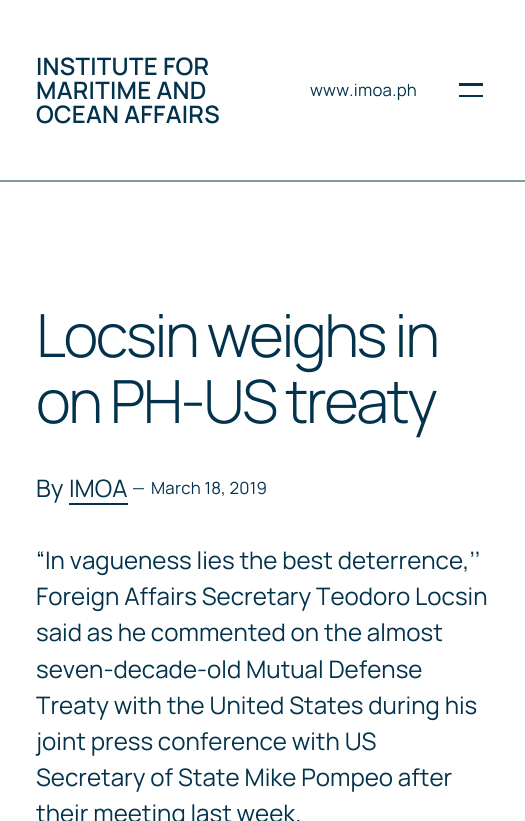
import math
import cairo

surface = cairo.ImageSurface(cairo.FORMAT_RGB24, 525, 821)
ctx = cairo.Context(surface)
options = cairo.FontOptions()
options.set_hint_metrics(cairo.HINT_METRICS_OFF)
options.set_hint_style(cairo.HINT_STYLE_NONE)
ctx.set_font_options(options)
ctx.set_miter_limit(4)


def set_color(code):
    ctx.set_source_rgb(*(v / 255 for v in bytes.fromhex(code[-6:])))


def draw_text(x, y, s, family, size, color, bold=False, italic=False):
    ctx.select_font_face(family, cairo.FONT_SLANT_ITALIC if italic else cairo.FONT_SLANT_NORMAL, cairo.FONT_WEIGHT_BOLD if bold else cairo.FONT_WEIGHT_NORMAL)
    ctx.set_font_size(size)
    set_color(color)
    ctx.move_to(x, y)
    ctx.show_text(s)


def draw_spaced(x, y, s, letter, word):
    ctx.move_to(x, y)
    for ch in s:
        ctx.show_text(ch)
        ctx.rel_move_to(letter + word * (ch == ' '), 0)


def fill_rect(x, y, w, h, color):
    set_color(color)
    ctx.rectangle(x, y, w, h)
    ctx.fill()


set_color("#ffffff")
ctx.paint()
fill_rect(0, 180, 525, 2, "#8299a4")
ctx.select_font_face("Manrope SemiBold")
ctx.set_font_size(24)
set_color("#03334c")
draw_spaced(36, 75, "INSTITUTE FOR", 0.25, 0)
draw_spaced(36, 99, "MARITIME AND", 0.25, 0)
draw_spaced(36, 123, "OCEAN AFFAIRS", 0.25, 0)
ctx.select_font_face("Manrope")
ctx.set_font_size(16.75)
draw_spaced(310, 96, "www.imoa.ph", 0.25, 0)
fill_rect(459, 83, 24, 3, "#03334c")
fill_rect(459, 95, 24, 2, "#03334c")
ctx.select_font_face("Manrope Light")
ctx.set_font_size(59.5)
draw_spaced(36, 357, "Locsin weighs in", -2.4, 0)
draw_spaced(36, 423, "on PH-US treaty", -2.4, 0)
draw_text(36, 497, "By", "Manrope", 24, "#03334c")
draw_text(69, 497, "IMOA", "Manrope", 24, "#03334c")
fill_rect(69, 503, 59, 2, "#03334c")
draw_text(132, 494, "—", "Manrope", 16.75, "#03334c")
draw_spaced(151, 494, "March 18, 2019", 0.25, 0)
draw_text(36, 569, "“In vagueness lies the best deterrence,’’", "Manrope", 24.1, "#03334c")
draw_text(36, 605, "Foreign Affairs Secretary Teodoro Locsin", "Manrope", 24.1, "#03334c")
draw_text(36, 641, "said as he commented on the almost", "Manrope", 24.1, "#03334c")
draw_text(36, 678, "seven-decade-old Mutual Defense", "Manrope", 24.1, "#03334c")
draw_text(36, 714, "Treaty with the United States during his", "Manrope", 24.1, "#03334c")
draw_text(36, 750, "joint press conference with US", "Manrope", 24.1, "#03334c")
draw_text(36, 786, "Secretary of State Mike Pompeo after", "Manrope", 24.1, "#03334c")
draw_text(36, 822, "their meeting last week.", "Manrope", 24.1, "#03334c")
surface.write_to_png("output.png")
